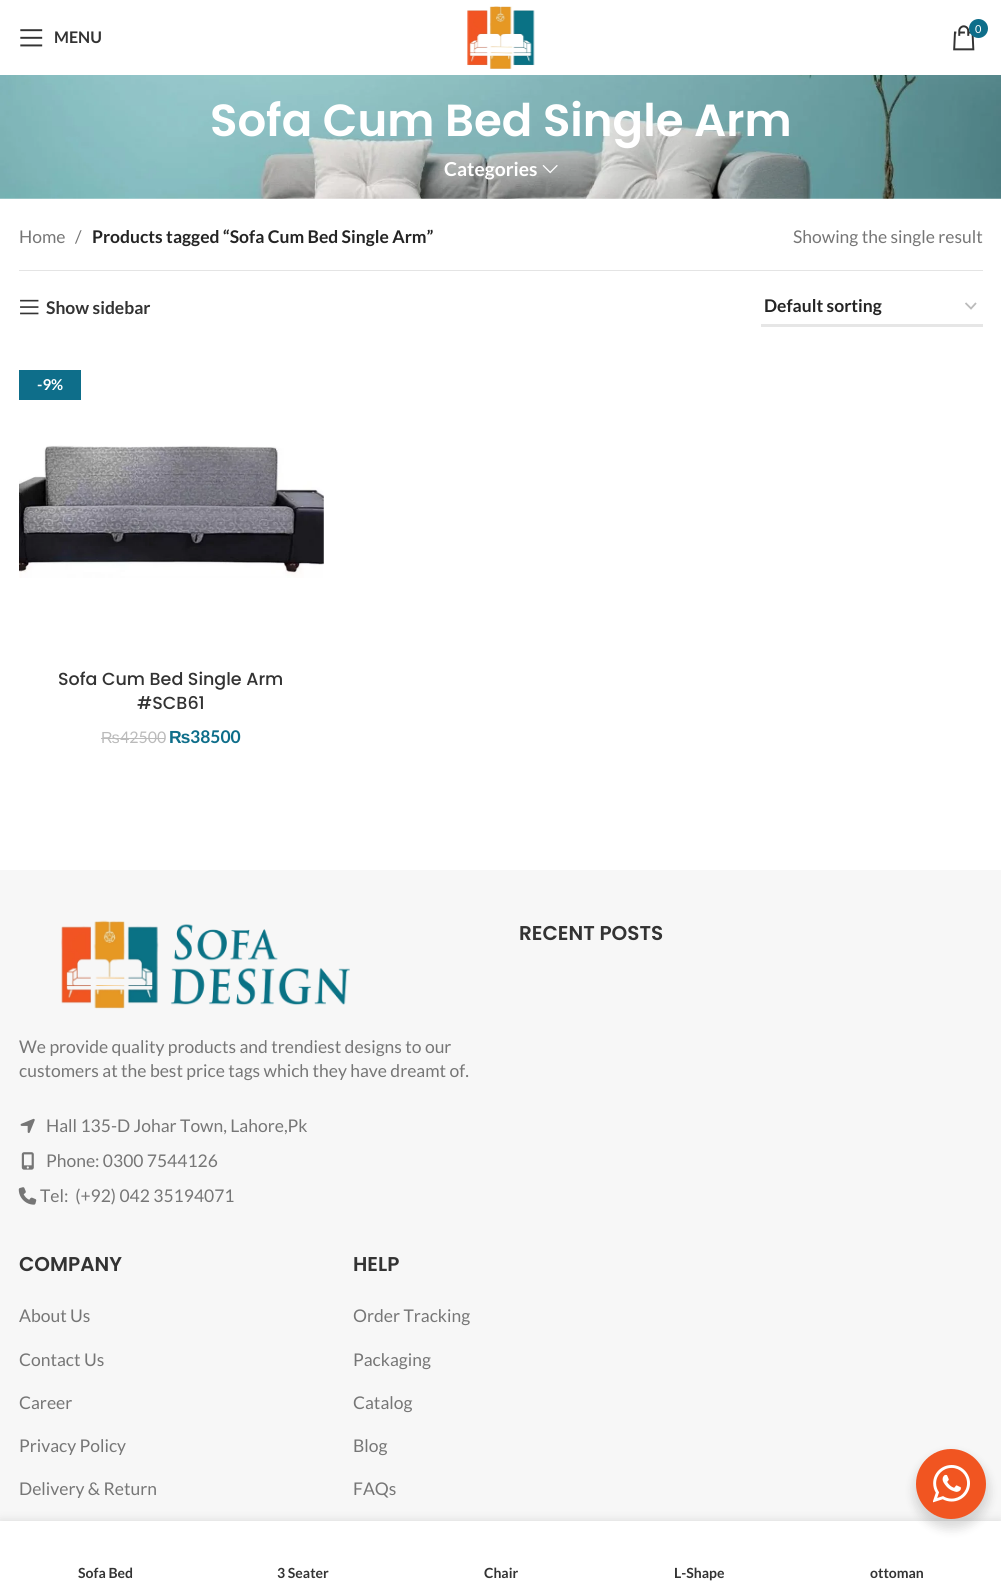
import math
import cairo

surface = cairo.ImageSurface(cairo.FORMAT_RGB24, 1001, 1589)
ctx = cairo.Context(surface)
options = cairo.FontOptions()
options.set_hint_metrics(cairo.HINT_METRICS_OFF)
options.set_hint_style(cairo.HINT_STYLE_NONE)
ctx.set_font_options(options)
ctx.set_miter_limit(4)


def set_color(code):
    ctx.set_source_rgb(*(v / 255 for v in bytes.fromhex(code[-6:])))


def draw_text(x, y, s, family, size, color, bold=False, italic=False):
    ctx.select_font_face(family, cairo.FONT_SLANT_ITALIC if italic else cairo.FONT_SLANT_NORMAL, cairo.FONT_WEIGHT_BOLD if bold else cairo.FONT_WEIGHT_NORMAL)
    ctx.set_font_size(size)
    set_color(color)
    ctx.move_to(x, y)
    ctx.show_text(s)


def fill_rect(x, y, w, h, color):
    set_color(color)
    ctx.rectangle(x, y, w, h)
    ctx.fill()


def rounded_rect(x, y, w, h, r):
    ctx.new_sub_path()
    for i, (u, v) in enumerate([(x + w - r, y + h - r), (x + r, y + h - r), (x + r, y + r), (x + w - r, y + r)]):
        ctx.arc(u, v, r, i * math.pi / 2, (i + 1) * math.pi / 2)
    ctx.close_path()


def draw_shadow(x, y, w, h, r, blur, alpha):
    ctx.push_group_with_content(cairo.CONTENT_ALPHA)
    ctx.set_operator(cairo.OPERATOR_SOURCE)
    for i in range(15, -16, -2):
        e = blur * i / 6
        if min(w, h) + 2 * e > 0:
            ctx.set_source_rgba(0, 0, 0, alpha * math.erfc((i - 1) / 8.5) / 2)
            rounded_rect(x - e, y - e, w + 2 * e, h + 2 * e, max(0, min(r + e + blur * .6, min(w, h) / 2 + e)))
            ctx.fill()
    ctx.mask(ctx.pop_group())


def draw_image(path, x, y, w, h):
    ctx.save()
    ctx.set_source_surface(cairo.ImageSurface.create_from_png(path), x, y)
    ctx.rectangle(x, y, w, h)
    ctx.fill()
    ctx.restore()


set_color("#ffffff")
ctx.paint()
draw_image("assets/img1.png", 467, 6, 68, 63)
draw_image("assets/img2.png", 953, 25, 22, 26)
set_color("#0e6e8a")
ctx.arc(978.5, 28.5, 9.5, 0, 2 * math.pi)
ctx.fill()
draw_text(975, 33, "0", "Lato", 11, "#ffffff")
draw_image("assets/img3.png", 20, 29, 23, 18)
draw_text(54, 43, "MENU", "Lato", 16, "#333333", bold=True)
draw_image("assets/img4.png", 0, 75, 1001, 124)
draw_text(210, 136, "Sofa Cum Bed Single Arm", "Poppins SemiBold", 45, "#ffffff")
draw_text(444, 176, "Categories", "Lato", 19.25, "#ffffff", bold=True)
draw_image("assets/img5.png", 542, 165, 16, 9)
fill_rect(19, 270, 964, 1, "#e4e4e4")
draw_text(19, 243, "Home", "Lato", 17.5, "#767676")
draw_text(75, 243, "/", "Lato", 17.5, "#767676")
draw_text(92, 243, "Products tagged “Sofa Cum Bed Single Arm”", "Lato", 17.5, "#242424", bold=True)
draw_text(793, 243, "Showing the single result", "Lato", 17.5, "#767676")
draw_image("assets/img6.png", 20, 299, 19, 16)
draw_text(46, 314, "Show sidebar", "Lato", 17.5, "#333333", bold=True)
ctx.new_path()
ctx.move_to(965.5, 303)
ctx.line_to(971, 308.5)
ctx.line_to(976, 303)
set_color("#bbbbbb")
ctx.set_line_width(1.8)
ctx.stroke()
fill_rect(761, 324, 222, 3, "#e6e6e6")
draw_text(764, 312, "Default sorting", "Lato", 17.5, "#242424", bold=True)
fill_rect(19, 370, 62, 30, "#0e6e8a")
draw_text(37, 390, "-9%", "Lato", 15, "#ffffff", bold=True)
draw_image("assets/img7.png", 19, 445, 305, 133)
draw_text(58, 685, "Sofa Cum Bed Single Arm", "Poppins Medium", 17.5, "#333333")
draw_text(137, 709, "#SCB61", "Poppins Medium", 17.5, "#333333")
draw_text(101, 743, "₨", "Liberation Sans", 16, "#bbbbbb")
fill_rect(101, 738, 19, 1, "#bbbbbb")
fill_rect(120, 738, 45, 1, "#bbbbbb")
draw_text(120, 743, "42500", "Lato", 16, "#bbbbbb")
draw_text(169, 743, "₨", "Liberation Sans", 17.5, "#0e6e8a", bold=True)
draw_text(190, 743, "38500", "Lato", 17.5, "#0e6e8a", bold=True)
fill_rect(0, 870, 1001, 651, "#f7f7f7")
draw_text(519, 940, "RECENT POSTS", "Poppins SemiBold", 20, "#333333")
draw_image("assets/img8.png", 61, 920, 289, 89)
draw_text(19, 1053, "We provide quality products and trendiest designs to our", "Lato", 17.5, "#767676")
draw_text(19, 1077, "customers at the best price tags which they have dreamt of.", "Lato", 17.5, "#767676")
draw_image("assets/img9.png", 20, 1118, 15, 15)
draw_text(46, 1132, "Hall 135-D Johar Town, Lahore,Pk", "Lato", 17.5, "#767676")
draw_image("assets/img10.png", 21, 1152, 13, 18)
draw_text(46, 1167, "Phone: 0300 7544126", "Lato", 17.5, "#767676")
draw_image("assets/img11.png", 18, 1187, 19, 18)
draw_text(40, 1202, "Tel:  (+92) 042 35194071", "Lato", 17.5, "#767676")
draw_text(19, 1271, "COMPANY", "Poppins SemiBold", 20, "#333333")
draw_text(19, 1322, "About Us", "Lato", 17.5, "#767676")
draw_text(19, 1366, "Contact Us", "Lato", 17.5, "#767676")
draw_text(19, 1409, "Career", "Lato", 17.5, "#767676")
draw_text(19, 1452, "Privacy Policy", "Lato", 17.5, "#767676")
draw_text(19, 1495, "Delivery & Return", "Lato", 17.5, "#767676")
draw_text(353, 1271, "HELP", "Poppins SemiBold", 20, "#333333")
draw_text(353, 1322, "Order Tracking", "Lato", 17.5, "#767676")
draw_text(353, 1366, "Packaging", "Lato", 17.5, "#767676")
draw_text(353, 1409, "Catalog", "Lato", 17.5, "#767676")
draw_text(353, 1452, "Blog", "Lato", 17.5, "#767676")
draw_text(353, 1495, "FAQs", "Lato", 17.5, "#767676")
set_color("#000000")
draw_shadow(0, 1521, 1001, 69, 0, 5.5, 0.12)
fill_rect(0, 1521, 1001, 68, "#ffffff")
set_color("#000000")
draw_shadow(914, 1454, 75, 75, 37.5, 5, 0.14)
set_color("#f15521")
ctx.arc(951, 1484, 35, 0, 2 * math.pi)
ctx.fill()
draw_image("assets/img12.png", 933, 1465, 37, 38)
draw_text(78, 1578, "Sofa Bed", "Lato", 14, "#333333", bold=True)
draw_text(277, 1578, "3 Seater", "Lato", 14, "#333333", bold=True)
draw_text(484, 1578, "Chair", "Lato", 14, "#333333", bold=True)
draw_text(674, 1578, "L-Shape", "Lato", 14, "#333333", bold=True)
draw_text(870, 1578, "ottoman", "Lato", 14, "#333333", bold=True)
surface.write_to_png("output.png")
